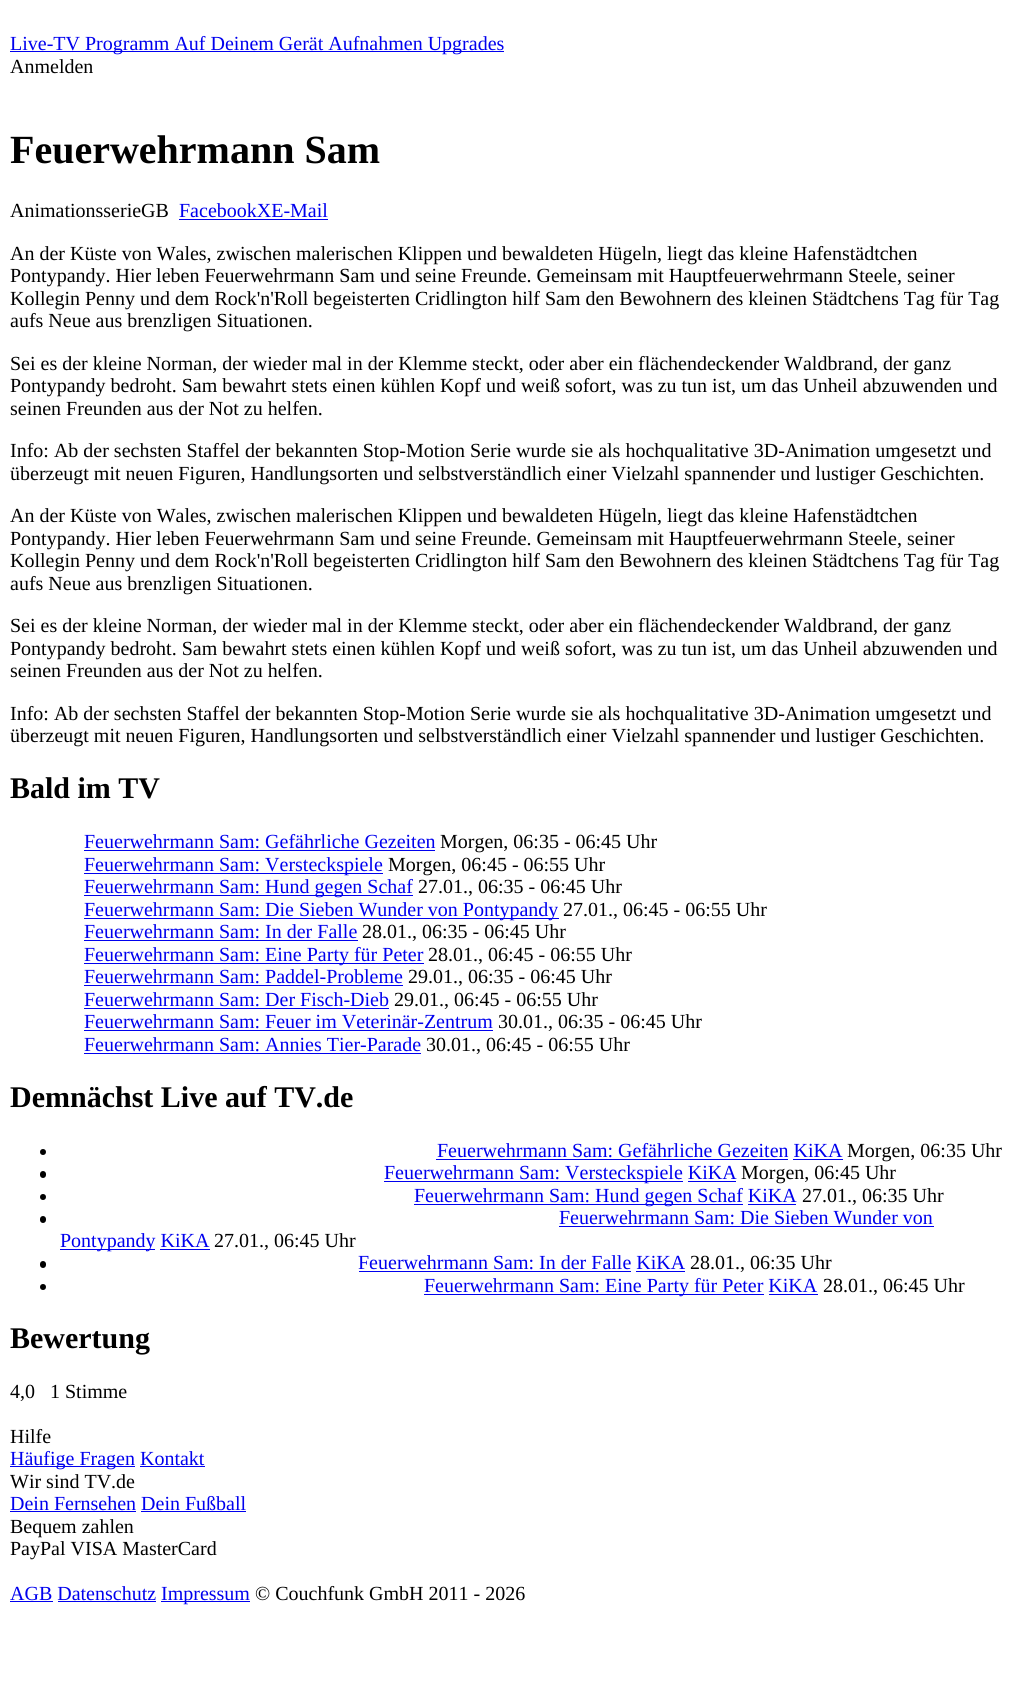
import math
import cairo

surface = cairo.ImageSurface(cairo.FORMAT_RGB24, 1025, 1686)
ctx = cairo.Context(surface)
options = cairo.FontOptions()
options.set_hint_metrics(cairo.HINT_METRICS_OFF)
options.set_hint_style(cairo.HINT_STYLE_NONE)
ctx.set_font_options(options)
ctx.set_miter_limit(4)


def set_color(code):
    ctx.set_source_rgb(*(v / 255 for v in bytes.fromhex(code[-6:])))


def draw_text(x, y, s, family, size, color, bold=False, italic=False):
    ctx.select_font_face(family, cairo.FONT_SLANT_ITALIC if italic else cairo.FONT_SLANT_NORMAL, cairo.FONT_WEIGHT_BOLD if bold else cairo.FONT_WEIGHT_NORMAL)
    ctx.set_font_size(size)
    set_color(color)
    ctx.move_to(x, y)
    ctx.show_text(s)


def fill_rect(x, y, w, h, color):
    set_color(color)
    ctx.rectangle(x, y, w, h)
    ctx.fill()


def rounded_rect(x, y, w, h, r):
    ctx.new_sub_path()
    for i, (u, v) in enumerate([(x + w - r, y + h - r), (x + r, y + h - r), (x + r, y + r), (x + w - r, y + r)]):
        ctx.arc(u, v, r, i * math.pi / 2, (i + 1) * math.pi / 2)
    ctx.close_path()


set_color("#ffffff")
ctx.paint()
fill_rect(10, 51, 494, 1, "#0000ee")
draw_text(10, 50, "Live-TV Programm Auf Deinem Gerät Aufnahmen Upgrades", "Liberation Serif", 20, "#0000ee")
draw_text(10, 73, "Anmelden", "Liberation Serif", 20, "#000000")
draw_text(10, 163, "Feuerwehrmann Sam", "Liberation Serif", 40, "#000000", bold=True)
draw_text(10, 217, "AnimationsserieGB", "Liberation Serif", 20, "#000000")
draw_text(179, 217, "FacebookXE-Mail", "Liberation Serif", 20, "#0000ee")
fill_rect(179, 219, 149, 1, "#0000ee")
draw_text(10, 260, "An der Küste von Wales, zwischen malerischen Klippen und bewaldeten Hügeln, liegt das kleine Hafenstädtchen", "Liberation Serif", 20, "#000000")
draw_text(10, 282, "Pontypandy. Hier leben Feuerwehrmann Sam und seine Freunde. Gemeinsam mit Hauptfeuerwehrmann Steele, seiner", "Liberation Serif", 20, "#000000")
draw_text(10, 305, "Kollegin Penny und dem Rock'n'Roll begeisterten Cridlington hilf Sam den Bewohnern des kleinen Städtchens Tag für Tag", "Liberation Serif", 20, "#000000")
draw_text(10, 327, "aufs Neue aus brenzligen Situationen.", "Liberation Serif", 20, "#000000")
draw_text(10, 370, "Sei es der kleine Norman, der wieder mal in der Klemme steckt, oder aber ein flächendeckender Waldbrand, der ganz", "Liberation Serif", 20, "#000000")
draw_text(10, 392, "Pontypandy bedroht. Sam bewahrt stets einen kühlen Kopf und weiß sofort, was zu tun ist, um das Unheil abzuwenden und", "Liberation Serif", 20, "#000000")
draw_text(10, 415, "seinen Freunden aus der Not zu helfen.", "Liberation Serif", 20, "#000000")
draw_text(10, 457, "Info: Ab der sechsten Staffel der bekannten Stop-Motion Serie wurde sie als hochqualitative 3D-Animation umgesetzt und", "Liberation Serif", 20, "#000000")
draw_text(10, 480, "überzeugt mit neuen Figuren, Handlungsorten und selbstverständlich einer Vielzahl spannender und lustiger Geschichten.", "Liberation Serif", 20, "#000000")
draw_text(10, 522, "An der Küste von Wales, zwischen malerischen Klippen und bewaldeten Hügeln, liegt das kleine Hafenstädtchen", "Liberation Serif", 20, "#000000")
draw_text(10, 545, "Pontypandy. Hier leben Feuerwehrmann Sam und seine Freunde. Gemeinsam mit Hauptfeuerwehrmann Steele, seiner", "Liberation Serif", 20, "#000000")
draw_text(10, 567, "Kollegin Penny und dem Rock'n'Roll begeisterten Cridlington hilf Sam den Bewohnern des kleinen Städtchens Tag für Tag", "Liberation Serif", 20, "#000000")
draw_text(10, 590, "aufs Neue aus brenzligen Situationen.", "Liberation Serif", 20, "#000000")
draw_text(10, 632, "Sei es der kleine Norman, der wieder mal in der Klemme steckt, oder aber ein flächendeckender Waldbrand, der ganz", "Liberation Serif", 20, "#000000")
draw_text(10, 655, "Pontypandy bedroht. Sam bewahrt stets einen kühlen Kopf und weiß sofort, was zu tun ist, um das Unheil abzuwenden und", "Liberation Serif", 20, "#000000")
draw_text(10, 677, "seinen Freunden aus der Not zu helfen.", "Liberation Serif", 20, "#000000")
draw_text(10, 720, "Info: Ab der sechsten Staffel der bekannten Stop-Motion Serie wurde sie als hochqualitative 3D-Animation umgesetzt und", "Liberation Serif", 20, "#000000")
draw_text(10, 742, "überzeugt mit neuen Figuren, Handlungsorten und selbstverständlich einer Vielzahl spannender und lustiger Geschichten.", "Liberation Serif", 20, "#000000")
draw_text(10, 798, "Bald im TV", "Liberation Serif", 30, "#000000", bold=True)
draw_text(84, 848, "Feuerwehrmann Sam: Gefährliche Gezeiten", "Liberation Serif", 20, "#0000ee")
fill_rect(84, 850, 351, 1, "#0000ee")
draw_text(440, 848, "Morgen, 06:35 - 06:45 Uhr", "Liberation Serif", 20, "#000000")
fill_rect(84, 873, 299, 1, "#0000ee")
draw_text(84, 871, "Feuerwehrmann Sam: Versteckspiele", "Liberation Serif", 20, "#0000ee")
draw_text(388, 871, "Morgen, 06:45 - 06:55 Uhr", "Liberation Serif", 20, "#000000")
fill_rect(84, 895, 329, 1, "#0000ee")
draw_text(84, 893, "Feuerwehrmann Sam: Hund gegen Schaf", "Liberation Serif", 20, "#0000ee")
draw_text(418, 893, "27.01., 06:35 - 06:45 Uhr", "Liberation Serif", 20, "#000000")
fill_rect(84, 918, 475, 1, "#0000ee")
draw_text(84, 916, "Feuerwehrmann Sam: Die Sieben Wunder von Pontypandy", "Liberation Serif", 20, "#0000ee")
draw_text(563, 916, "27.01., 06:45 - 06:55 Uhr", "Liberation Serif", 20, "#000000")
draw_text(84, 938, "Feuerwehrmann Sam: In der Falle", "Liberation Serif", 20, "#0000ee")
fill_rect(84, 940, 274, 1, "#0000ee")
draw_text(362, 938, "28.01., 06:35 - 06:45 Uhr", "Liberation Serif", 20, "#000000")
fill_rect(84, 963, 340, 1, "#0000ee")
draw_text(84, 961, "Feuerwehrmann Sam: Eine Party für Peter", "Liberation Serif", 20, "#0000ee")
draw_text(428, 961, "28.01., 06:45 - 06:55 Uhr", "Liberation Serif", 20, "#000000")
draw_text(84, 983, "Feuerwehrmann Sam: Paddel-Probleme", "Liberation Serif", 20, "#0000ee")
fill_rect(84, 985, 319, 1, "#0000ee")
draw_text(408, 983, "29.01., 06:35 - 06:45 Uhr", "Liberation Serif", 20, "#000000")
draw_text(84, 1006, "Feuerwehrmann Sam: Der Fisch-Dieb", "Liberation Serif", 20, "#0000ee")
fill_rect(84, 1008, 305, 1, "#0000ee")
draw_text(394, 1006, "29.01., 06:45 - 06:55 Uhr", "Liberation Serif", 20, "#000000")
draw_text(84, 1028, "Feuerwehrmann Sam: Feuer im Veterinär-Zentrum", "Liberation Serif", 20, "#0000ee")
fill_rect(84, 1030, 409, 1, "#0000ee")
draw_text(498, 1028, "30.01., 06:35 - 06:45 Uhr", "Liberation Serif", 20, "#000000")
draw_text(84, 1051, "Feuerwehrmann Sam: Annies Tier-Parade", "Liberation Serif", 20, "#0000ee")
fill_rect(84, 1053, 337, 1, "#0000ee")
draw_text(426, 1051, "30.01., 06:45 - 06:55 Uhr", "Liberation Serif", 20, "#000000")
draw_text(10, 1107, "Demnächst Live auf TV.de", "Liberation Serif", 30, "#000000", bold=True)
ctx.new_path()
ctx.arc(43, 1152, 3, 0, 2 * math.pi)
ctx.fill()
draw_text(437, 1157, "Feuerwehrmann Sam: Gefährliche Gezeiten KiKA", "Liberation Serif", 20, "#0000ee")
fill_rect(436, 1159, 352, 1, "#0000ee")
draw_text(847, 1157, "Morgen, 06:35 Uhr", "Liberation Serif", 20, "#000000")
fill_rect(793, 1159, 50, 1, "#0000ee")
set_color("#000000")
rounded_rect(40, 1171, 6, 7, 3)
ctx.fill()
fill_rect(384, 1181, 299, 1, "#0000ee")
draw_text(384, 1179, "Feuerwehrmann Sam: Versteckspiele KiKA", "Liberation Serif", 20, "#0000ee")
draw_text(741, 1179, "Morgen, 06:45 Uhr", "Liberation Serif", 20, "#000000")
fill_rect(688, 1181, 48, 1, "#0000ee")
set_color("#000000")
ctx.new_path()
ctx.arc(43, 1197, 3, 0, 2 * math.pi)
ctx.fill()
fill_rect(414, 1204, 329, 1, "#0000ee")
draw_text(414, 1202, "Feuerwehrmann Sam: Hund gegen Schaf KiKA", "Liberation Serif", 20, "#0000ee")
draw_text(802, 1202, "27.01., 06:35 Uhr", "Liberation Serif", 20, "#000000")
fill_rect(748, 1204, 48, 1, "#0000ee")
set_color("#000000")
rounded_rect(40, 1216, 6, 7, 3)
ctx.fill()
draw_text(559, 1224, "Feuerwehrmann Sam: Die Sieben Wunder von", "Liberation Serif", 20, "#0000ee")
fill_rect(559, 1226, 375, 1, "#0000ee")
fill_rect(60, 1249, 95, 1, "#0000ee")
draw_text(60, 1247, "Pontypandy KiKA", "Liberation Serif", 20, "#0000ee")
draw_text(214, 1247, "27.01., 06:45 Uhr", "Liberation Serif", 20, "#000000")
fill_rect(160, 1249, 50, 1, "#0000ee")
set_color("#000000")
rounded_rect(40, 1261, 6, 7, 3)
ctx.fill()
draw_text(358, 1269, "Feuerwehrmann Sam: In der Falle KiKA", "Liberation Serif", 20, "#0000ee")
fill_rect(359, 1271, 272, 1, "#0000ee")
draw_text(690, 1269, "28.01., 06:35 Uhr", "Liberation Serif", 20, "#000000")
fill_rect(636, 1271, 49, 1, "#0000ee")
set_color("#000000")
ctx.new_path()
ctx.arc(43, 1287, 3, 0, 2 * math.pi)
ctx.fill()
fill_rect(424, 1294, 340, 1, "#0000ee")
draw_text(424, 1292, "Feuerwehrmann Sam: Eine Party für Peter KiKA", "Liberation Serif", 20, "#0000ee")
draw_text(823, 1292, "28.01., 06:45 Uhr", "Liberation Serif", 20, "#000000")
fill_rect(769, 1294, 49, 1, "#0000ee")
draw_text(10, 1348, "Bewertung", "Liberation Serif", 30, "#000000", bold=True)
draw_text(10, 1398, "4,0", "Liberation Serif", 20, "#000000")
draw_text(50, 1398, "1 Stimme", "Liberation Serif", 20, "#000000")
draw_text(10, 1443, "Hilfe", "Liberation Serif", 20, "#000000")
fill_rect(10, 1466, 125, 1, "#0000ee")
draw_text(10, 1465, "Häufige Fragen Kontakt", "Liberation Serif", 20, "#0000ee")
fill_rect(140, 1466, 65, 1, "#0000ee")
draw_text(10, 1488, "Wir sind TV.de", "Liberation Serif", 20, "#000000")
draw_text(10, 1510, "Dein Fernsehen Dein Fußball", "Liberation Serif", 20, "#0000ee")
fill_rect(10, 1511, 126, 1, "#0000ee")
fill_rect(141, 1511, 105, 1, "#0000ee")
draw_text(10, 1533, "Bequem zahlen", "Liberation Serif", 20, "#000000")
draw_text(10, 1555, "PayPal VISA MasterCard", "Liberation Serif", 20, "#000000")
draw_text(10, 1600, "AGB Datenschutz", "Liberation Serif", 20, "#0000ee")
fill_rect(10, 1601, 43, 1, "#0000ee")
fill_rect(161, 1601, 89, 1, "#0000ee")
draw_text(161, 1600, "Impressum", "Liberation Serif", 20, "#0000ee")
draw_text(255, 1600, "© Couchfunk GmbH 2011 - 2026", "Liberation Serif", 20, "#000000")
fill_rect(58, 1601, 98, 1, "#0000ee")
surface.write_to_png("output.png")
